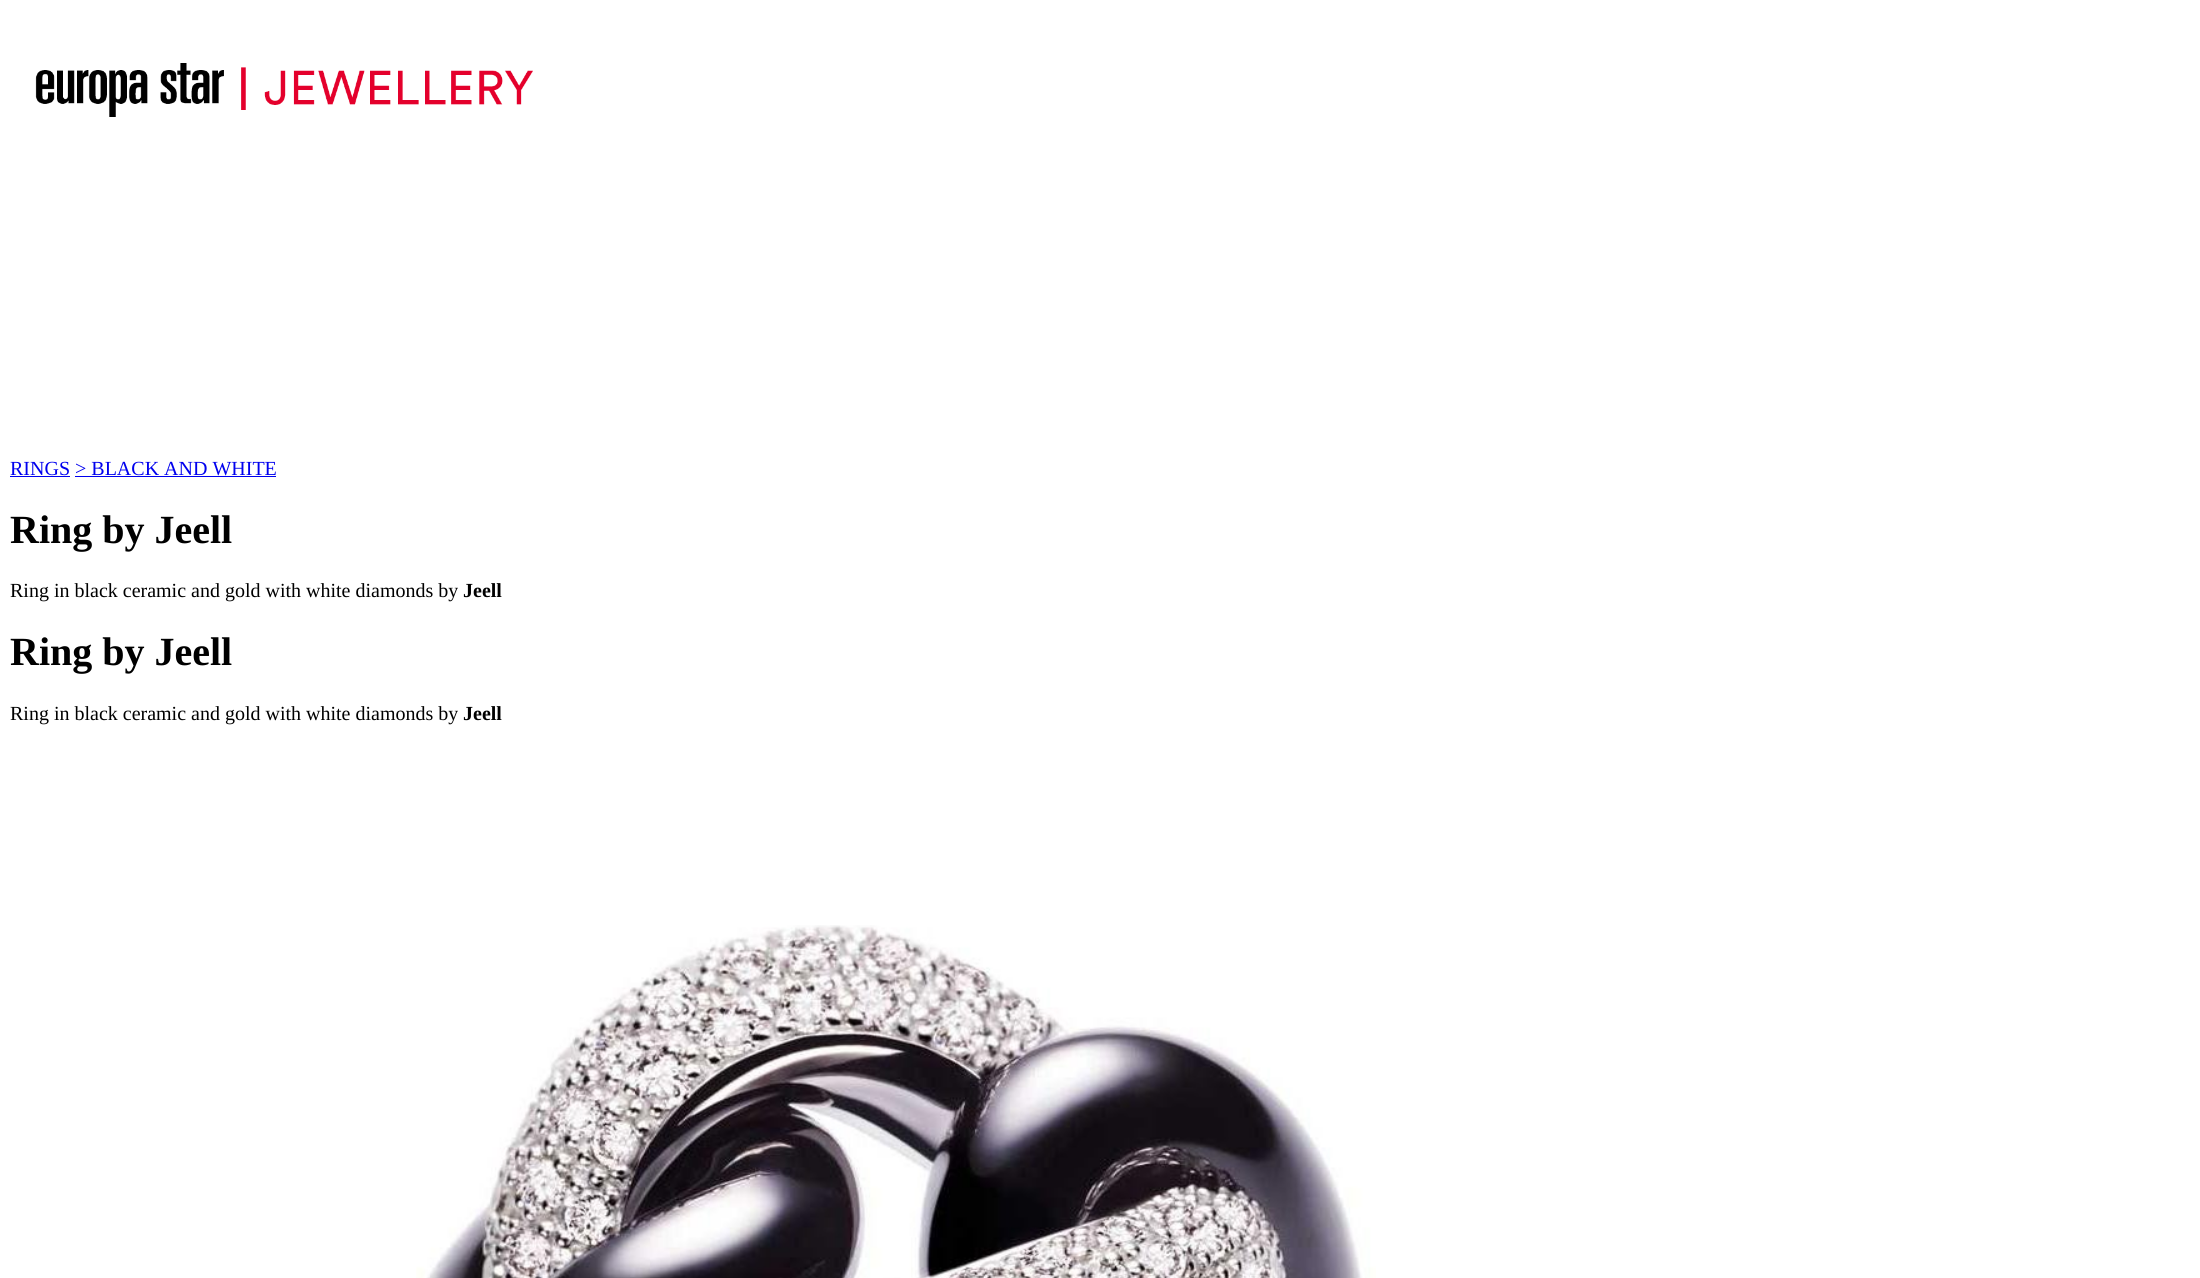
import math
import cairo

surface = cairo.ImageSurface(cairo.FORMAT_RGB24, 2200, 1278)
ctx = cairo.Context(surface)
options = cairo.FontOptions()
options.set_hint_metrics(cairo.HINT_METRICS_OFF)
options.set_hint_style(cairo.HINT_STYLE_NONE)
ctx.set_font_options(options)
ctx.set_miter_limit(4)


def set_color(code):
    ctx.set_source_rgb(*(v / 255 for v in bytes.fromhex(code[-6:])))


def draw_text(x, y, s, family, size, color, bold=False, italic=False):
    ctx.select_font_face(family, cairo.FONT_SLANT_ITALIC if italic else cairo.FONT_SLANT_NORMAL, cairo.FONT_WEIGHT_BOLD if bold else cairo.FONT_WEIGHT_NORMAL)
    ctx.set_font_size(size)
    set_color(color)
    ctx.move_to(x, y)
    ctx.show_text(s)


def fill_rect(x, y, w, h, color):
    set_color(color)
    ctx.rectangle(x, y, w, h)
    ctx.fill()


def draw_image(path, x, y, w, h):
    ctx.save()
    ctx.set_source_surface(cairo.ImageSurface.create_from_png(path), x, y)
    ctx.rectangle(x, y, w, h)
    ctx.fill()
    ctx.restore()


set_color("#ffffff")
ctx.paint()
draw_image("assets/img1.png", 35, 63, 498, 54)
draw_text(10, 475, "RINGS > BLACK AND WHITE", "Liberation Serif", 20, "#0000ee")
fill_rect(10, 476, 60, 1, "#0000ee")
fill_rect(75, 476, 201, 1, "#0000ee")
draw_text(10, 543, "Ring by Jeell", "Liberation Serif", 40, "#000000", bold=True)
draw_text(10, 597, "Ring in black ceramic and gold with white diamonds by", "Liberation Serif", 20, "#000000")
draw_text(463, 597, "Jeell", "Liberation Serif", 20, "#000000", bold=True)
draw_text(10, 665, "Ring by Jeell", "Liberation Serif", 40, "#000000", bold=True)
draw_text(10, 720, "Ring in black ceramic and gold with white diamonds by", "Liberation Serif", 20, "#000000")
draw_text(463, 720, "Jeell", "Liberation Serif", 20, "#000000", bold=True)
draw_image("assets/img2.png", 416, 925, 960, 353)
surface.write_to_png("output.png")
